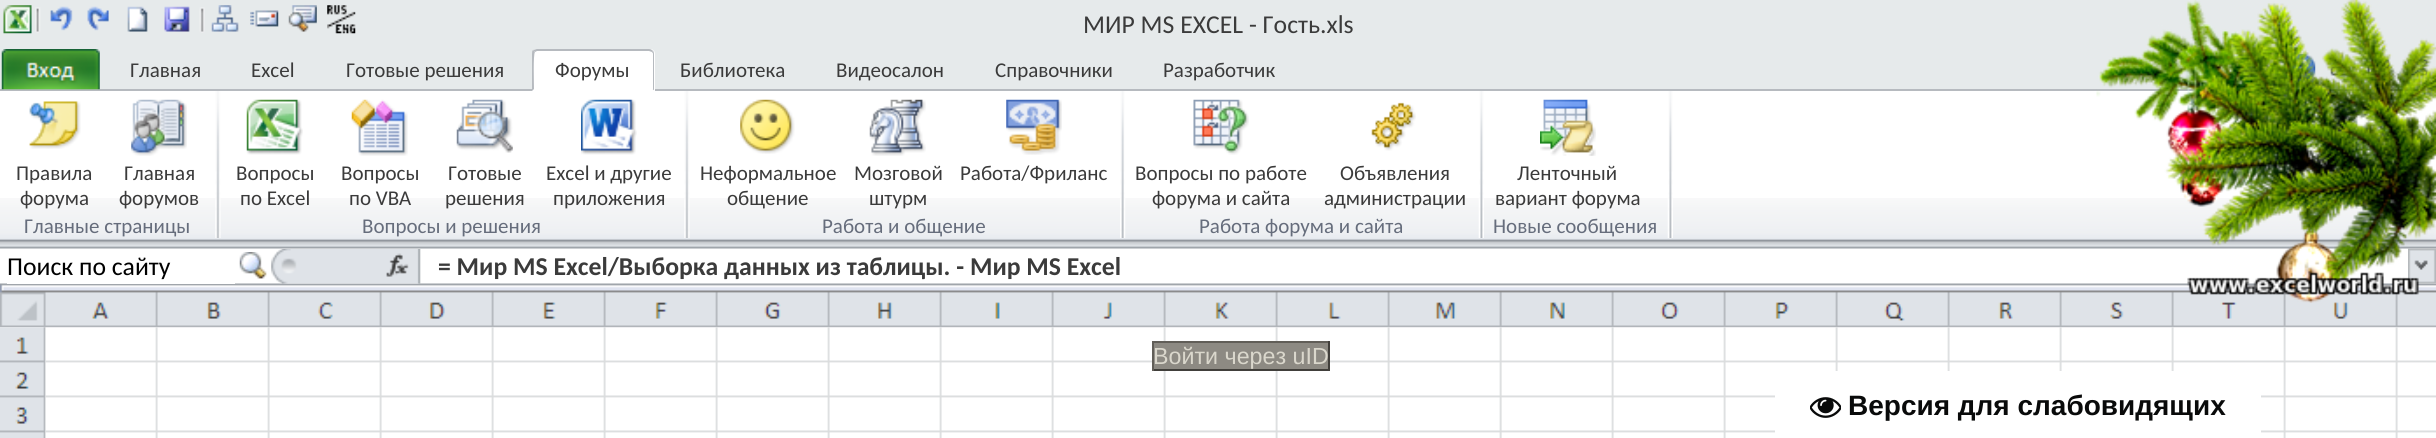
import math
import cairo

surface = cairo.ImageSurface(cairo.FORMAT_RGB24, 2436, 438)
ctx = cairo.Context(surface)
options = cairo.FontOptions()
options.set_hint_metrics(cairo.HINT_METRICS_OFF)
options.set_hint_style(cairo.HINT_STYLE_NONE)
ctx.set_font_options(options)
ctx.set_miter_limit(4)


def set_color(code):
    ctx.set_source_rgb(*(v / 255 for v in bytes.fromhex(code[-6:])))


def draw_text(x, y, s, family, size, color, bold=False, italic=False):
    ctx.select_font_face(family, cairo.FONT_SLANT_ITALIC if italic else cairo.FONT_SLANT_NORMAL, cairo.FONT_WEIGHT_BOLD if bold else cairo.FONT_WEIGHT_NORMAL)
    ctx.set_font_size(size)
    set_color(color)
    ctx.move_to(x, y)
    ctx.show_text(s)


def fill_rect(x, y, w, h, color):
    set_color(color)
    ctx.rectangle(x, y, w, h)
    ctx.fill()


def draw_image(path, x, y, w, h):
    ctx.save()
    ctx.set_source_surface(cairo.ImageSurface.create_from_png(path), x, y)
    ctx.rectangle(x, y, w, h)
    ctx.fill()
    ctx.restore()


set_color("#ffffff")
ctx.paint()
fill_rect(0, 0, 2436, 89, "#e6eaeb")
draw_image("assets/img1.png", 3, 5, 29, 29)
draw_image("assets/img2.png", 35, 7, 6, 26)
draw_image("assets/img3.png", 50, 6, 23, 25)
draw_image("assets/img4.png", 87, 6, 22, 25)
draw_image("assets/img5.png", 127, 6, 21, 26)
draw_image("assets/img6.png", 164, 6, 26, 26)
draw_image("assets/img7.png", 199, 7, 6, 26)
draw_image("assets/img8.png", 211, 5, 28, 27)
draw_image("assets/img9.png", 250, 10, 29, 17)
draw_image("assets/img10.png", 288, 5, 29, 27)
draw_image("assets/img11.png", 327, 5, 29, 29)
draw_text(1083, 33, "МИР MS EXCEL - Гость.xls", "Carlito", 25.7, "#3b3b3b")
fill_rect(0, 89, 2436, 2, "#b6babf")
draw_image("assets/img12.png", 1, 49, 99, 41)
draw_text(130, 77, "Главная", "Carlito", 21, "#3b3b3b")
draw_text(251, 77, "Excel", "Carlito", 21, "#3b3b3b")
draw_text(346, 77, "Готовые решения", "Carlito", 21, "#3b3b3b")
set_color("#ffffff")
ctx.new_path()
ctx.move_to(537, 49)
ctx.line_to(650, 49)
ctx.curve_to(653, 49, 655, 51, 655, 54)
ctx.line_to(655, 91)
ctx.line_to(532, 91)
ctx.line_to(532, 54)
ctx.curve_to(532, 51, 534, 49, 537, 49)
ctx.close_path()
ctx.fill()
set_color("#b6babf")
ctx.new_path()
ctx.move_to(537, 49)
ctx.curve_to(536, 49, 534, 50, 533, 50)
ctx.line_to(535, 52)
ctx.line_to(537, 51)
ctx.line_to(649, 51)
ctx.line_to(652, 52)
ctx.line_to(653, 51)
ctx.curve_to(652, 50, 651, 49, 649, 49)
ctx.close_path()
ctx.fill()
ctx.new_path()
ctx.move_to(653, 50.5)
ctx.curve_to(653.5, 51.5, 654, 52.5, 654, 54)
ctx.line_to(654, 90.5)
ctx.line_to(652.5, 89)
ctx.line_to(653, 89)
ctx.line_to(653, 53.5)
ctx.line_to(652, 52)
ctx.close_path()
ctx.fill()
set_color("#ffffff")
ctx.new_path()
ctx.move_to(654, 91)
ctx.line_to(652, 89)
ctx.line_to(534, 89)
ctx.line_to(532, 91)
ctx.close_path()
ctx.fill()
set_color("#b6babf")
ctx.new_path()
ctx.move_to(532, 91)
ctx.line_to(534, 89)
ctx.curve_to(534, 84, 533, 54, 535, 52)
ctx.line_to(533, 50)
ctx.curve_to(532, 51, 532, 52, 532, 54)
ctx.close_path()
ctx.fill()
draw_text(555, 77, "Форумы", "Carlito", 21, "#3b3b3b")
draw_text(680, 77, "Библиотека", "Carlito", 21, "#3b3b3b")
draw_text(836, 77, "Видеосалон", "Carlito", 21, "#3b3b3b")
draw_text(995, 77, "Справочники", "Carlito", 21, "#3b3b3b")
draw_text(1163, 77, "Разработчик", "Carlito", 21, "#3b3b3b")
draw_image("assets/img13.png", 2255, 62, 17, 14)
draw_image("assets/img14.png", 2287, 54, 29, 29)
draw_image("assets/img15.png", 2330, 66, 21, 10)
draw_image("assets/img16.png", 2367, 59, 23, 21)
draw_image("assets/img17.png", 2407, 59, 21, 17)
draw_image("assets/img18.png", 0, 198, 2436, 51)
draw_image("assets/img19.png", 215, 91, 6, 147)
draw_image("assets/img20.png", 29, 101, 52, 48)
draw_text(16, 180, "Правила", "Carlito", 21, "#3b3b3b")
draw_text(20, 205, "форума", "Carlito", 21, "#3b3b3b")
draw_image("assets/img21.png", 131, 99, 56, 57)
draw_text(124, 180, "Главная", "Carlito", 21, "#3b3b3b")
draw_text(119, 205, "форумов", "Carlito", 21, "#3b3b3b")
draw_text(24, 233, "Главные страницы", "Carlito", 21, "#666d7c")
draw_image("assets/img19.png", 684, 91, 6, 147)
draw_image("assets/img22.png", 246, 99, 57, 56)
draw_text(236, 180, "Вопросы", "Carlito", 21, "#3b3b3b")
draw_text(240, 205, "по Excel", "Carlito", 21, "#3b3b3b")
draw_image("assets/img23.png", 351, 99, 57, 57)
draw_text(341, 180, "Вопросы", "Carlito", 21, "#3b3b3b")
draw_text(349, 205, "по VBA", "Carlito", 21, "#3b3b3b")
draw_image("assets/img24.png", 456, 99, 57, 54)
draw_text(448, 180, "Готовые", "Carlito", 21, "#3b3b3b")
draw_text(445, 205, "решения", "Carlito", 21, "#3b3b3b")
draw_image("assets/img25.png", 581, 99, 56, 56)
draw_text(546, 180, "Excel и другие", "Carlito", 21, "#3b3b3b")
draw_text(553, 205, "приложения", "Carlito", 21, "#3b3b3b")
draw_text(362, 233, "Вопросы и решения", "Carlito", 21, "#666d7c")
draw_image("assets/img26.png", 1120, 91, 6, 147)
draw_image("assets/img27.png", 740, 99, 55, 55)
draw_text(700, 180, "Неформальное", "Carlito", 21, "#3b3b3b")
draw_text(727, 205, "общение", "Carlito", 21, "#3b3b3b")
draw_image("assets/img28.png", 869, 99, 57, 57)
draw_text(854, 180, "Мозговой", "Carlito", 21, "#3b3b3b")
draw_text(869, 205, "штурм", "Carlito", 21, "#3b3b3b")
draw_image("assets/img29.png", 1006, 99, 56, 56)
draw_text(960, 180, "Работа/Фриланс", "Carlito", 21, "#3b3b3b")
draw_text(822, 233, "Работа и общение", "Carlito", 21, "#666d7c")
draw_image("assets/img30.png", 1478, 91, 6, 147)
draw_image("assets/img31.png", 1193, 99, 56, 56)
draw_text(1135, 180, "Вопросы по работе", "Carlito", 21, "#3b3b3b")
draw_text(1152, 205, "форума и сайта", "Carlito", 21, "#3b3b3b")
draw_image("assets/img32.png", 1371, 102, 45, 49)
draw_text(1340, 180, "Объявления", "Carlito", 21, "#3b3b3b")
draw_text(1324, 205, "администрации", "Carlito", 21, "#3b3b3b")
draw_text(1199, 233, "Работа форума и сайта", "Carlito", 21, "#666d7c")
draw_image("assets/img30.png", 1667, 91, 6, 147)
draw_image("assets/img33.png", 1540, 99, 56, 57)
draw_text(1517, 180, "Ленточный", "Carlito", 21, "#3b3b3b")
draw_text(1495, 205, "вариант форума", "Carlito", 21, "#3b3b3b")
draw_text(1493, 233, "Новые сообщения", "Carlito", 21, "#666d7c")
draw_image("assets/img38.png", 0, 283, 2436, 45)
draw_image("assets/img34.png", 271, 249, 150, 35)
fill_rect(7, 283, 228, 1, "#ffffff")
draw_text(7, 275, "Поиск по сайту", "Carlito", 25.7, "#000000")
draw_image("assets/img35.png", 239, 252, 28, 27)
draw_text(438, 275, "= Мир MS Excel/Выборка данных из таблицы. - Мир MS Excel", "Carlito", 25.7, "#3b3b3b", bold=True)
draw_image("assets/img36.png", 2408, 248, 28, 36)
draw_image("assets/img37.png", 2096, 0, 340, 303)
draw_image("assets/img39.png", 0, 327, 46, 111)
draw_image("assets/img40.png", 45, 327, 2391, 111)
fill_rect(1154, 343, 174, 26, "#8d8a83")
fill_rect(1152, 341, 178, 2, "#615e58")
fill_rect(1328, 341, 2, 30, "#413f3b")
fill_rect(1152, 369, 178, 2, "#413f3b")
fill_rect(1152, 341, 2, 30, "#615e58")
draw_text(1153, 364, "Войти через uID", "Liberation Sans", 23.25, "#dad7cc")
set_color("#ffffff")
ctx.new_path()
ctx.move_to(1796, 371)
ctx.line_to(2240, 371)
ctx.curve_to(2251.5, 371, 2261, 380.5, 2261, 392)
ctx.line_to(2261, 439)
ctx.line_to(1775, 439)
ctx.line_to(1775, 392)
ctx.curve_to(1775, 380.5, 1784.5, 371, 1796, 371)
ctx.close_path()
ctx.fill()
draw_image("assets/img41.png", 1810, 397, 31, 21)
draw_text(1848, 415, "Версия для слабовидящих", "Liberation Sans", 28, "#090a0a", bold=True)
surface.write_to_png("output.png")
